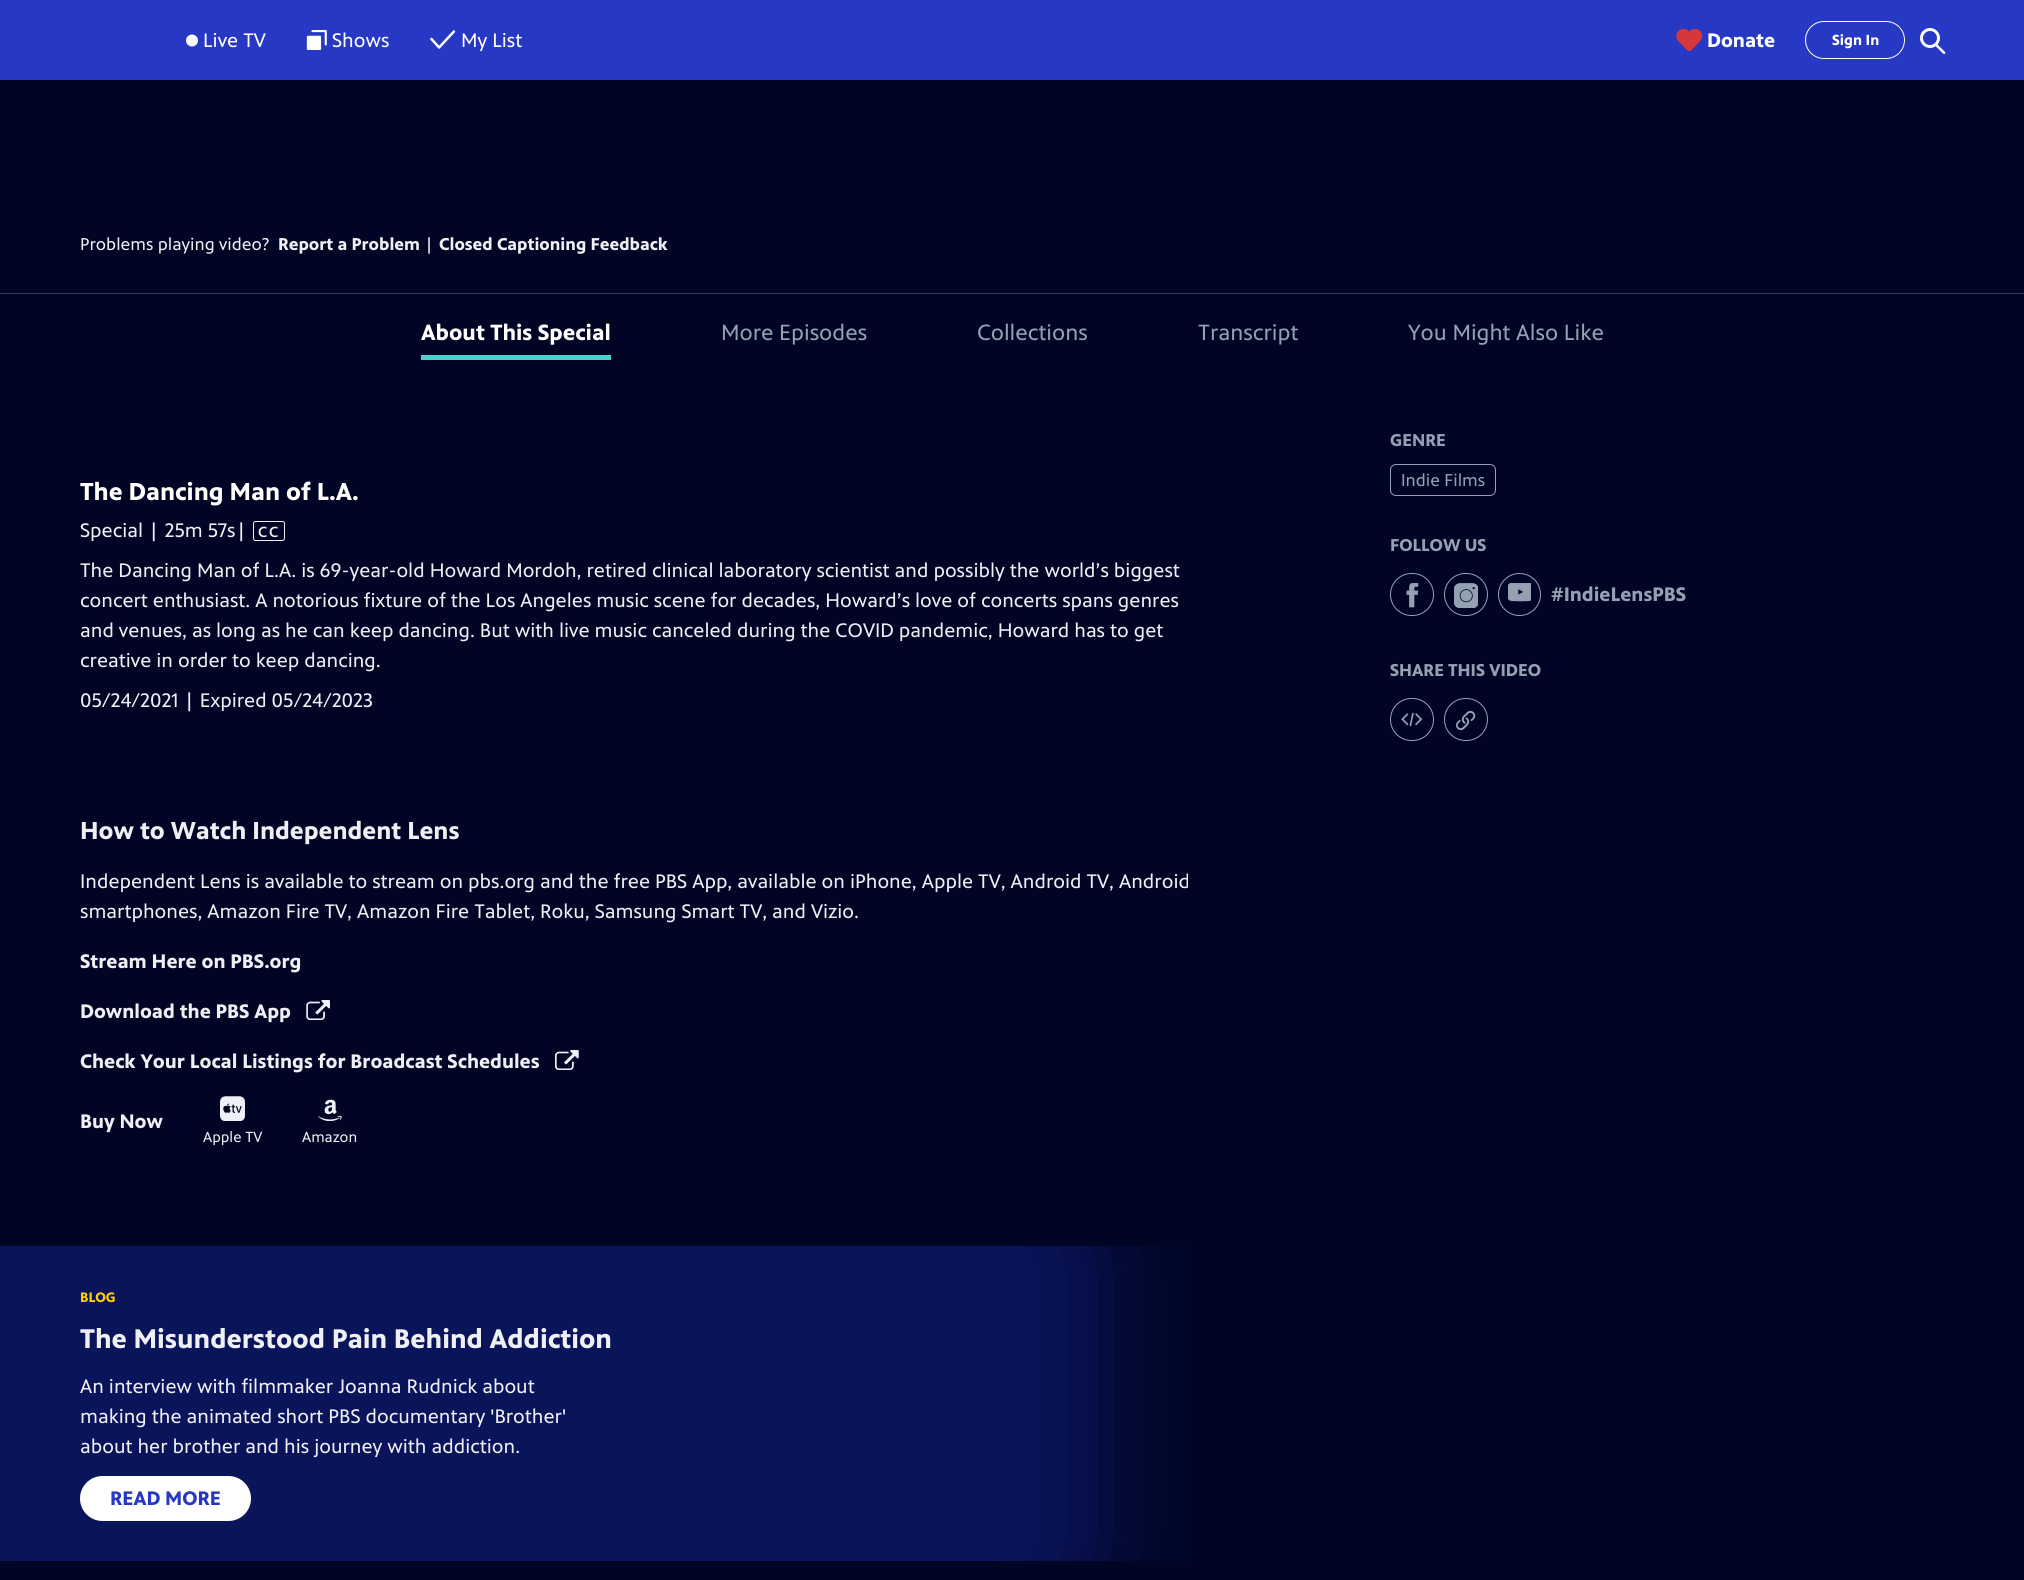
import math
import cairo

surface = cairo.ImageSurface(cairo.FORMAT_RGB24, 2024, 1580)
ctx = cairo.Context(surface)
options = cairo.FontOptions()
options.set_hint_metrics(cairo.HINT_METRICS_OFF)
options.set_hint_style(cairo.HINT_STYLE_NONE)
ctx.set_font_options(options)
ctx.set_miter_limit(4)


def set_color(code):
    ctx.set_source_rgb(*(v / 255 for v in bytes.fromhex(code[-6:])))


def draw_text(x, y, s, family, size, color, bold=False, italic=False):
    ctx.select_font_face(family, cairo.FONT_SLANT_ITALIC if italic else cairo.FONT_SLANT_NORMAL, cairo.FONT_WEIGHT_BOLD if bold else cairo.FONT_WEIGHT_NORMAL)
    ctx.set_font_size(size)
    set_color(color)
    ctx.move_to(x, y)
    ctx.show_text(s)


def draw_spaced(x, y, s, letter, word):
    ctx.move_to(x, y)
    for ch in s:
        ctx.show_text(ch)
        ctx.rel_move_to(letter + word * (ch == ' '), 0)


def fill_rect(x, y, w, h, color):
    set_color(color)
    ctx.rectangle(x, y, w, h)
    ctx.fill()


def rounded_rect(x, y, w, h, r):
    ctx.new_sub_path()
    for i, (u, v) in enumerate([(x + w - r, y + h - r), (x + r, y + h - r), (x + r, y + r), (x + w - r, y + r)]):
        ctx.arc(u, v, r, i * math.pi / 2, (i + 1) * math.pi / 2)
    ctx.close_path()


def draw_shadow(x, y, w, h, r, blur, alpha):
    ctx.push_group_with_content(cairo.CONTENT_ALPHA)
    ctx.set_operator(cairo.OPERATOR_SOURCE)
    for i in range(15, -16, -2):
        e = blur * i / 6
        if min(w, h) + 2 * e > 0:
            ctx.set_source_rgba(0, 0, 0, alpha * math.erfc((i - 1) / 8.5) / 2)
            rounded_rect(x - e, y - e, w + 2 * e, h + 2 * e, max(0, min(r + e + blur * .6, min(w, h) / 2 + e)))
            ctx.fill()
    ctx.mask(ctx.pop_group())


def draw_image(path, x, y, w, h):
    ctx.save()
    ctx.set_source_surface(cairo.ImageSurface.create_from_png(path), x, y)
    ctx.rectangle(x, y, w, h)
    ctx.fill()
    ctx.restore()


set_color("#000525")
ctx.paint()
fill_rect(0, 0, 2024, 80, "#2638c4")
set_color("#ffffff")
ctx.arc(192, 40.5, 6, 0, 2 * math.pi)
ctx.fill()
draw_text(203, 47, "Live TV", "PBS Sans", 20, "#ffffff")
draw_image("assets/img1.png", 306, 30, 21, 20)
draw_text(332, 47, "Shows", "PBS Sans", 20, "#ffffff")
draw_image("assets/img2.png", 430, 30, 26, 19)
draw_text(461, 47, "My List", "PBS Sans", 20, "#ffffff")
draw_image("assets/img3.png", 1676, 29, 27, 22)
draw_text(1707, 47, "Donate", "PBS Sans", 20, "#ffffff", bold=True)
rounded_rect(1805.5, 21.5, 99, 37, 18.5)
ctx.set_line_width(1)
ctx.stroke()
draw_text(1832, 45, "Sign In", "PBS Sans", 15, "#ffffff", bold=True)
ctx.new_path()
ctx.arc(1930, 38, 8.5, 0, 2 * math.pi)
ctx.set_line_width(3)
ctx.stroke()
ctx.new_path()
ctx.move_to(1943, 53.5)
ctx.line_to(1934.5, 45)
ctx.line_to(1935, 44)
ctx.curve_to(1936, 42, 1939, 46, 1939.5, 46.5)
ctx.line_to(1945.5, 52.5)
ctx.curve_to(1945.5, 54, 1944, 54.5, 1943, 53.5)
ctx.close_path()
ctx.fill()
draw_text(80, 250, "Problems playing video?", "PBS Sans", 17.5, "#eef0f5")
draw_text(278, 250, "Report a Problem", "PBS Sans", 17.5, "#eef0f5", bold=True)
draw_text(424, 250, "|", "PBS Sans", 17.5, "#eef0f5")
draw_text(439, 250, "Closed Captioning Feedback", "PBS Sans", 17.5, "#eef0f5", bold=True)
fill_rect(0, 293, 2024, 1, "#2e3a55")
draw_text(421, 340, "About This Special", "PBS Sans", 22.5, "#ffffff", bold=True)
fill_rect(421, 355, 190, 5, "#46d4cd")
draw_text(721, 340, "More Episodes", "PBS Sans", 22.5, "#94a1b2")
draw_text(977, 340, "Collections", "PBS Sans", 22.5, "#94a1b2")
draw_text(1198, 340, "Transcript", "PBS Sans", 22.5, "#94a1b2")
draw_text(1408, 340, "You Might Also Like", "PBS Sans", 22.5, "#94a1b2")
draw_text(80, 500, "The Dancing Man of L.A.", "PBS Sans", 25, "#ffffff", bold=True)
draw_text(80, 537, "Special | 25m 57s|", "PBS Sans", 20, "#eef0f5")
rounded_rect(253.5, 521.5, 31, 19, 2)
ctx.set_line_width(1)
ctx.stroke()
ctx.select_font_face("PBS Sans Medium")
ctx.set_font_size(15)
draw_spaced(258, 537, "CC", 2, 0)
draw_text(80, 577, "The Dancing Man of L.A. is 69-year-old Howard Mordoh, retired clinical laboratory scientist and possibly the world’s biggest", "PBS Sans", 20, "#eef0f5")
draw_text(80, 607, "concert enthusiast. A notorious fixture of the Los Angeles music scene for decades, Howard’s love of concerts spans genres", "PBS Sans", 20, "#eef0f5")
draw_text(80, 637, "and venues, as long as he can keep dancing. But with live music canceled during the COVID pandemic, Howard has to get", "PBS Sans", 20, "#eef0f5")
draw_text(80, 667, "creative in order to keep dancing.", "PBS Sans", 20, "#eef0f5")
draw_text(80, 707, "05/24/2021 | Expired 05/24/2023", "PBS Sans", 20, "#eef0f5")
draw_text(1390, 446, "GENRE", "PBS Sans", 17.5, "#94a1b2", bold=True)
rounded_rect(1390.5, 464.5, 105, 31, 5.5)
ctx.stroke()
draw_text(1401, 486, "Indie Films", "PBS Sans", 17.5, "#94a1b2")
draw_text(1390, 551, "FOLLOW US", "PBS Sans", 17.5, "#94a1b2", bold=True)
rounded_rect(1390.5, 573.5, 43, 42, 21)
ctx.stroke()
draw_image("assets/img4.png", 1406, 583, 13, 25)
rounded_rect(1444.5, 573.5, 43, 42, 21)
ctx.stroke()
draw_image("assets/img5.png", 1454, 583, 24, 25)
ctx.arc(1519.5, 594.5, 21, 0, 2 * math.pi)
ctx.stroke()
draw_image("assets/img6.png", 1508, 583, 23, 19)
draw_text(1551, 601, "#IndieLensPBS", "PBS Sans", 20, "#94a1b2", bold=True)
draw_text(1390, 676, "SHARE THIS VIDEO", "PBS Sans", 17.5, "#94a1b2", bold=True)
rounded_rect(1390.5, 698.5, 43, 42, 21)
ctx.stroke()
draw_image("assets/img7.png", 1401, 713, 22, 13)
rounded_rect(1444.5, 698.5, 43, 42, 21)
ctx.stroke()
draw_image("assets/img8.png", 1456, 710, 20, 20)
draw_text(80, 839, "How to Watch Independent Lens", "PBS Sans", 25, "#eef0f5", bold=True)
draw_text(80, 888, "Independent Lens is available to stream on pbs.org and the free PBS App, available on iPhone, Apple TV, Android TV, Android", "PBS Sans", 20, "#eef0f5")
draw_text(80, 918, "smartphones, Amazon Fire TV, Amazon Fire Tablet, Roku, Samsung Smart TV, and Vizio.", "PBS Sans", 20, "#eef0f5")
draw_text(80, 968, "Stream Here on PBS.org", "PBS Sans", 20, "#eef0f5", bold=True)
draw_text(80, 1018, "Download the PBS App", "PBS Sans", 20, "#eef0f5", bold=True)
draw_image("assets/img9.png", 306, 1000, 24, 20)
draw_text(80, 1068, "Check Your Local Listings for Broadcast Schedules", "PBS Sans", 20, "#eef0f5", bold=True)
draw_image("assets/img10.png", 555, 1050, 24, 20)
draw_text(80, 1128, "Buy Now", "PBS Sans", 20, "#eef0f5", bold=True)
draw_image("assets/img11.png", 220, 1096, 25, 25)
draw_text(203, 1142, "Apple TV", "PBS Sans", 15, "#eef0f5")
draw_image("assets/img12.png", 318, 1099, 24, 22)
draw_text(302, 1142, "Amazon", "PBS Sans", 15, "#eef0f5")
ctx.save()
ctx.rectangle(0, 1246, 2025, 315)
ctx.clip()
set_color("#0a145a")
draw_shadow(-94, 1153, 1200, 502, 106, 47, 1)
ctx.restore()
set_color("#0a145a")
ctx.new_path()
ctx.move_to(0, 1246)
ctx.line_to(1013, 1246)
ctx.line_to(1013, 1548)
ctx.curve_to(1013, 1555, 1007, 1561, 1000, 1561)
ctx.line_to(13, 1561)
ctx.curve_to(6, 1561, 0, 1555, 0, 1548)
ctx.close_path()
ctx.fill()
draw_text(80, 1302, "BLOG", "PBS Sans", 14, "#ffcf00", bold=True)
draw_text(80, 1348, "The Misunderstood Pain Behind Addiction", "PBS Sans", 27.5, "#eef0f5", bold=True)
draw_text(80, 1393, "An interview with filmmaker Joanna Rudnick about", "PBS Sans", 20, "#eef0f5")
draw_text(80, 1423, "making the animated short PBS documentary 'Brother'", "PBS Sans", 20, "#eef0f5")
draw_text(80, 1453, "about her brother and his journey with addiction.", "PBS Sans", 20, "#eef0f5")
set_color("#ffffff")
rounded_rect(80, 1476, 171, 45, 22.5)
ctx.fill()
draw_text(110, 1505, "READ MORE", "PBS Sans", 20, "#2638c4", bold=True)
surface.write_to_png("output.png")
